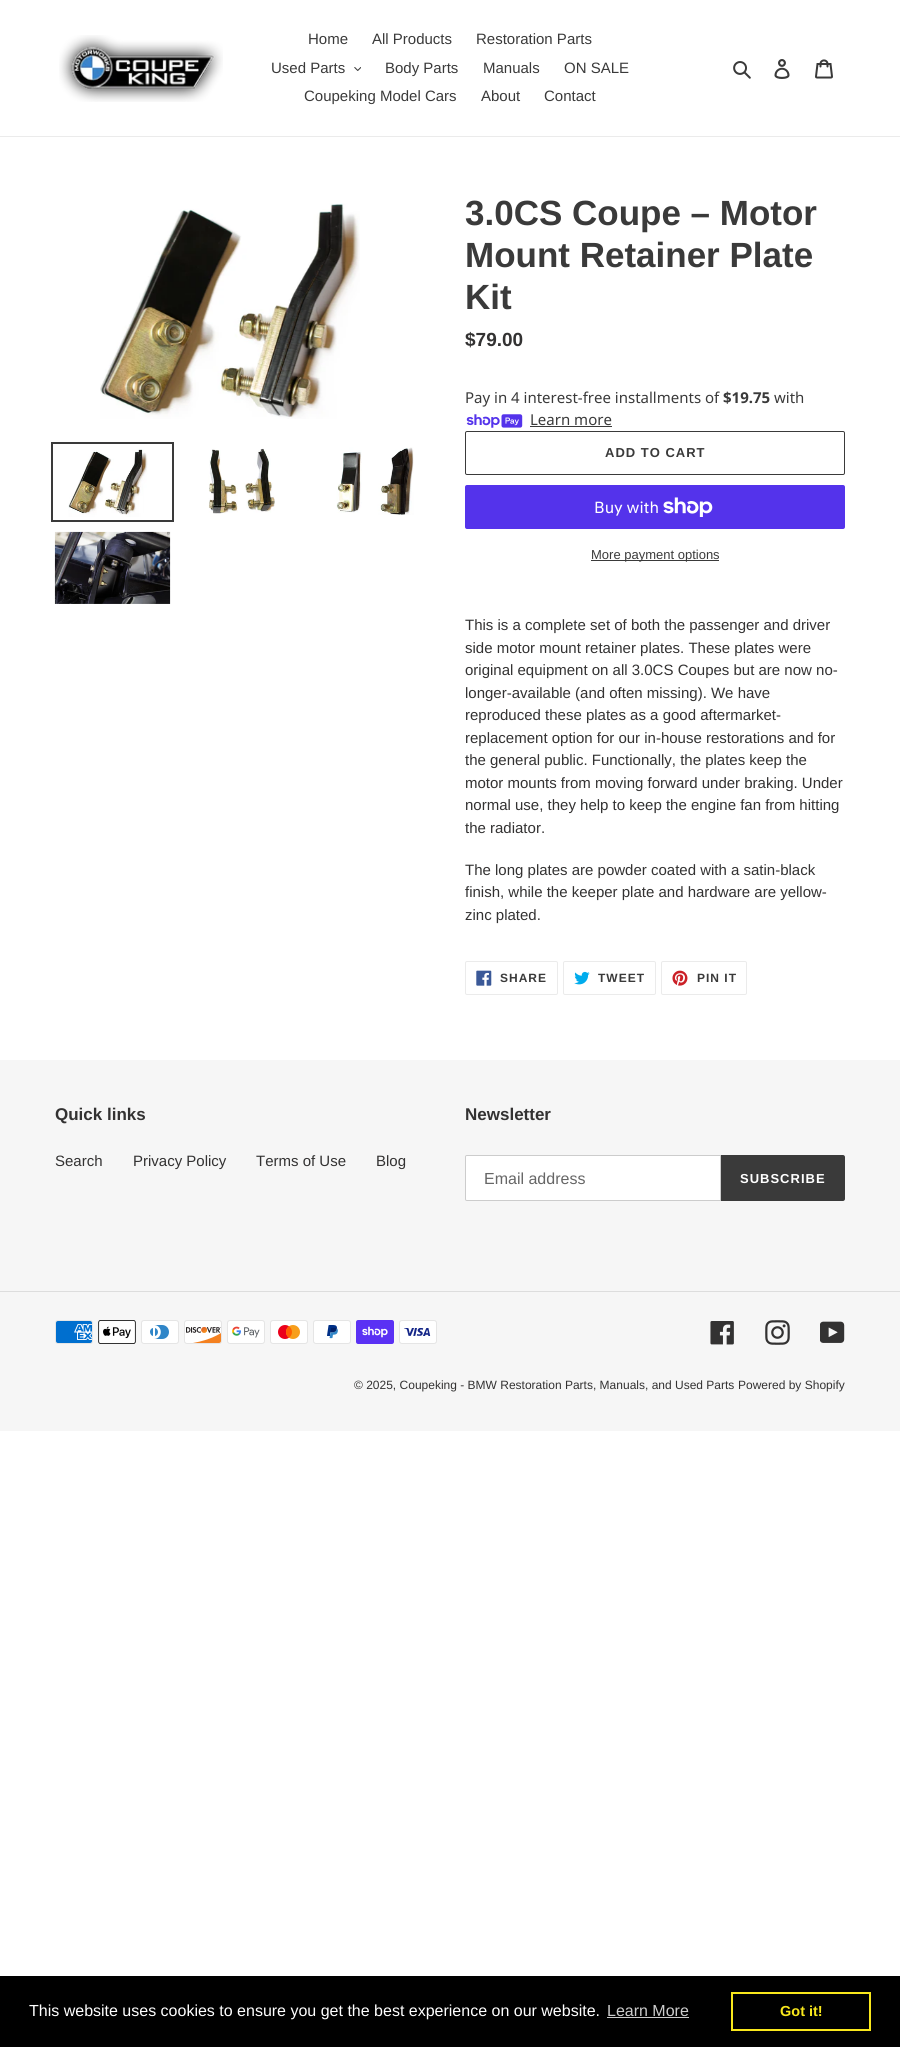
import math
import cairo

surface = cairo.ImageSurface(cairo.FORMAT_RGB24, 900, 2047)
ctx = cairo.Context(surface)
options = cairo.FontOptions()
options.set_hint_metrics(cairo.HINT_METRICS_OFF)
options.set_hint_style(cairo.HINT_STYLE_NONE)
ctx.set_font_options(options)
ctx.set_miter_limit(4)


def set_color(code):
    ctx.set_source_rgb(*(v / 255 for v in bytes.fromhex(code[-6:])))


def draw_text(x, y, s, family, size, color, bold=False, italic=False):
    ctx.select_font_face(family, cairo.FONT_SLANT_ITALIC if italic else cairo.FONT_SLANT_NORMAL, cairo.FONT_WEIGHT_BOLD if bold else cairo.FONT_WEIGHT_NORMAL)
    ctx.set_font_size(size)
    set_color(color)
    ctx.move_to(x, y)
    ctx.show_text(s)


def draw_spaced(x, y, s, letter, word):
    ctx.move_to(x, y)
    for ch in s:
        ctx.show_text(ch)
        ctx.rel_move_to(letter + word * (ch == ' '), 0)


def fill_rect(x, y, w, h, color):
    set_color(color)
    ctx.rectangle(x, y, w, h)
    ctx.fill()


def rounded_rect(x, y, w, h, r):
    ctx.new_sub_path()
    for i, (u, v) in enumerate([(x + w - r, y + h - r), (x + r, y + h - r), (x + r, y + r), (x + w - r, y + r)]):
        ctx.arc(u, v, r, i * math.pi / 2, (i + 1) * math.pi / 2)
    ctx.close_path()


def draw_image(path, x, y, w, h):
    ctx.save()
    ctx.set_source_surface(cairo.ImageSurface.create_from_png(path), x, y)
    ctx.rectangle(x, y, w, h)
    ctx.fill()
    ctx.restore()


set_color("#ffffff")
ctx.paint()
fill_rect(0, 136, 900, 1, "#ebebeb")
draw_image("assets/img1.png", 59, 35, 164, 67)
draw_text(308, 44, "Home", "Liberation Sans", 15, "#3a3a3a")
draw_text(372, 44, "All Products", "Liberation Sans", 15, "#3a3a3a")
draw_text(476, 44, "Restoration Parts", "Liberation Sans", 15, "#3a3a3a")
draw_text(271, 73, "Used Parts", "Liberation Sans", 15, "#3a3a3a")
draw_image("assets/img2.png", 354, 67, 7, 4)
draw_text(385, 73, "Body Parts", "Liberation Sans", 15, "#3a3a3a")
draw_text(483, 73, "Manuals", "Liberation Sans", 15, "#3a3a3a")
draw_text(564, 73, "ON SALE", "Liberation Sans", 15, "#3a3a3a")
draw_text(304, 101, "Coupeking Model Cars", "Liberation Sans", 15, "#3a3a3a")
draw_text(481, 101, "About", "Liberation Sans", 15, "#3a3a3a")
draw_text(544, 101, "Contact", "Liberation Sans", 15, "#3a3a3a")
draw_image("assets/img3.png", 733, 61, 18, 18)
draw_image("assets/img4.png", 774, 59, 16, 20)
draw_image("assets/img5.png", 815, 59, 18, 20)
draw_image("assets/img6.png", 100, 203, 260, 216)
ctx.rectangle(52, 443, 121, 78)
ctx.stroke()
draw_image("assets/img7.png", 68, 449, 80, 68)
draw_image("assets/img8.png", 208, 448, 67, 66)
draw_image("assets/img9.png", 336, 447, 78, 68)
draw_image("assets/img10.png", 54, 531, 117, 73)
draw_text(465, 225, "3.0CS Coupe – Motor", "Liberation Sans", 35, "#3a3a3a", bold=True)
draw_text(465, 267, "Mount Retainer Plate", "Liberation Sans", 35, "#3a3a3a", bold=True)
draw_text(465, 309, "Kit", "Liberation Sans", 35, "#3a3a3a", bold=True)
draw_text(465, 346, "$79.00", "Liberation Sans", 19, "#333232", bold=True)
draw_text(465, 403, "Pay in 4 interest-free installments of", "Noto Sans", 15, "#3a3a3a")
draw_text(723, 403, "$19.75", "Noto Sans", 15, "#3a3a3a", bold=True)
draw_text(774, 403, "with", "Noto Sans", 15, "#3a3a3a")
draw_image("assets/img11.png", 466, 414, 57, 14)
draw_text(530, 425, "Learn more", "Noto Sans", 15, "#3a3a3a")
fill_rect(530, 426, 82, 1, "#3a3a3a")
rounded_rect(465.5, 431.5, 379, 43, 1.5)
ctx.set_line_width(1)
ctx.stroke()
ctx.select_font_face("Liberation Sans", cairo.FONT_SLANT_NORMAL, cairo.FONT_WEIGHT_BOLD)
ctx.set_font_size(13)
draw_spaced(605, 457, "ADD TO CART", 1, 0)
set_color("#5433eb")
rounded_rect(465, 485, 380, 44, 2)
ctx.fill()
draw_text(594, 513, "Buy with", "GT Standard", 16, "#ffffff")
draw_image("assets/img12.png", 663, 497, 50, 20)
fill_rect(591, 560, 128, 1, "#3a3a3a")
draw_text(591, 559, "More payment options", "Liberation Sans", 13, "#3a3a3a")
draw_text(465, 630, "This is a complete set of both the passenger and driver", "Liberation Sans", 15, "#333232")
draw_text(465, 653, "side motor mount retainer plates. These plates were", "Liberation Sans", 15, "#333232")
draw_text(465, 675, "original equipment on all 3.0CS Coupes but are now no-", "Liberation Sans", 15, "#333232")
draw_text(465, 698, "longer-available (and often missing). We have", "Liberation Sans", 15, "#333232")
draw_text(465, 720, "reproduced these plates as a good aftermarket-", "Liberation Sans", 15, "#333232")
draw_text(465, 743, "replacement option for our in-house restorations and for", "Liberation Sans", 15, "#333232")
draw_text(465, 765, "the general public. Functionally, the plates keep the", "Liberation Sans", 15, "#333232")
draw_text(465, 788, "motor mounts from moving forward under braking. Under", "Liberation Sans", 15, "#333232")
draw_text(465, 810, "normal use, they help to keep the engine fan from hitting", "Liberation Sans", 15, "#333232")
draw_text(465, 833, "the radiator.", "Liberation Sans", 15, "#333232")
draw_text(465, 875, "The long plates are powder coated with a satin-black", "Liberation Sans", 15, "#333232")
draw_text(465, 897, "finish, while the keeper plate and hardware are yellow-", "Liberation Sans", 15, "#333232")
draw_text(465, 920, "zinc plated.", "Liberation Sans", 15, "#333232")
rounded_rect(465.5, 961.5, 92, 33, 1.5)
set_color("#ebebeb")
ctx.stroke()
draw_image("assets/img13.png", 476, 970, 16, 16)
ctx.select_font_face("Liberation Sans", cairo.FONT_SLANT_NORMAL, cairo.FONT_WEIGHT_BOLD)
ctx.set_font_size(12)
set_color("#3a3a3a")
draw_spaced(500, 982, "SHARE", 1, 0)
rounded_rect(563.5, 961.5, 92, 33, 1.5)
set_color("#ebebeb")
ctx.stroke()
draw_image("assets/img14.png", 574, 971, 16, 14)
set_color("#3a3a3a")
draw_spaced(598, 982, "TWEET", 1, 0)
rounded_rect(661.5, 961.5, 85, 33, 1.5)
set_color("#ebebeb")
ctx.stroke()
draw_image("assets/img15.png", 672, 970, 16, 16)
set_color("#3a3a3a")
draw_spaced(697, 982, "PIN IT", 1, 0)
fill_rect(0, 1060, 900, 371, "#f6f6f6")
draw_text(55, 1120, "Quick links", "Liberation Sans", 17, "#333232", bold=True)
draw_text(55, 1166, "Search", "Liberation Sans", 15, "#333232")
draw_text(133, 1166, "Privacy Policy", "Liberation Sans", 15, "#333232")
draw_text(256, 1166, "Terms of Use", "Liberation Sans", 15, "#333232")
draw_text(376, 1166, "Blog", "Liberation Sans", 15, "#333232")
draw_text(465, 1120, "Newsletter", "Liberation Sans", 17, "#333232", bold=True)
set_color("#ffffff")
ctx.new_path()
ctx.move_to(467, 1155.5)
ctx.line_to(720.5, 1155.5)
ctx.line_to(720.5, 1200.5)
ctx.line_to(467, 1200.5)
ctx.curve_to(466, 1200.5, 465.5, 1200, 465.5, 1199)
ctx.line_to(465.5, 1157)
ctx.curve_to(465.5, 1156, 466, 1155.5, 467, 1155.5)
ctx.close_path()
ctx.fill_preserve()
set_color("#cccccc")
ctx.stroke()
draw_text(484, 1184, "Email address", "Liberation Sans", 16, "#666666")
set_color("#3a3a3a")
ctx.new_path()
ctx.move_to(721, 1155)
ctx.line_to(843, 1155)
ctx.curve_to(844, 1155, 845, 1156, 845, 1157)
ctx.line_to(845, 1199)
ctx.curve_to(845, 1200, 844, 1201, 843, 1201)
ctx.line_to(721, 1201)
ctx.close_path()
ctx.fill()
ctx.select_font_face("Liberation Sans", cairo.FONT_SLANT_NORMAL, cairo.FONT_WEIGHT_BOLD)
ctx.set_font_size(13)
set_color("#ffffff")
draw_spaced(740, 1183, "SUBSCRIBE", 1, 0)
fill_rect(0, 1291, 900, 1, "#dddddd")
draw_image("assets/img16.png", 55, 1320, 38, 24)
draw_image("assets/img17.png", 98, 1320, 38, 24)
draw_image("assets/img18.png", 141, 1320, 38, 24)
draw_image("assets/img19.png", 184, 1320, 38, 24)
draw_image("assets/img20.png", 227, 1320, 38, 24)
draw_image("assets/img21.png", 270, 1320, 38, 24)
draw_image("assets/img22.png", 313, 1320, 38, 24)
draw_image("assets/img23.png", 356, 1320, 38, 24)
draw_image("assets/img24.png", 399, 1320, 38, 24)
draw_image("assets/img25.png", 710, 1321, 24, 24)
draw_image("assets/img26.png", 765, 1320, 25, 25)
draw_image("assets/img27.png", 820, 1321, 25, 22)
draw_text(354, 1389, "© 2025, Coupeking - BMW Restoration Parts, Manuals, and Used Parts", "Liberation Sans", 12, "#333232")
draw_text(738, 1389, "Powered by Shopify", "Liberation Sans", 12, "#333232")
fill_rect(0, 1976, 900, 71, "#000000")
draw_text(29, 2016, "This website uses cookies to ensure you get the best experience on our website.", "Liberation Sans", 16, "#ffffff")
draw_text(607, 2016, "Learn More", "Liberation Sans", 16, "#cccccc")
fill_rect(607, 2017, 82, 1, "#cccccc")
ctx.rectangle(732, 1993, 138, 37)
set_color("#f8e71c")
ctx.set_line_width(2)
ctx.stroke()
draw_text(780, 2016, "Got it!", "Liberation Sans", 14.5, "#f8e71c", bold=True)
surface.write_to_png("output.png")
